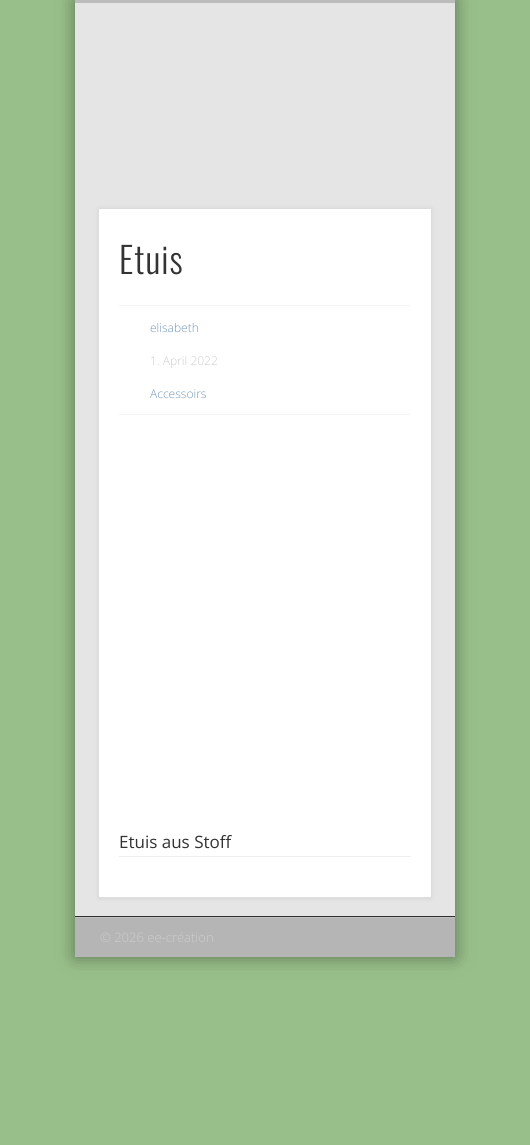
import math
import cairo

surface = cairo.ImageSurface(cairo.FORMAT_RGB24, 530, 1145)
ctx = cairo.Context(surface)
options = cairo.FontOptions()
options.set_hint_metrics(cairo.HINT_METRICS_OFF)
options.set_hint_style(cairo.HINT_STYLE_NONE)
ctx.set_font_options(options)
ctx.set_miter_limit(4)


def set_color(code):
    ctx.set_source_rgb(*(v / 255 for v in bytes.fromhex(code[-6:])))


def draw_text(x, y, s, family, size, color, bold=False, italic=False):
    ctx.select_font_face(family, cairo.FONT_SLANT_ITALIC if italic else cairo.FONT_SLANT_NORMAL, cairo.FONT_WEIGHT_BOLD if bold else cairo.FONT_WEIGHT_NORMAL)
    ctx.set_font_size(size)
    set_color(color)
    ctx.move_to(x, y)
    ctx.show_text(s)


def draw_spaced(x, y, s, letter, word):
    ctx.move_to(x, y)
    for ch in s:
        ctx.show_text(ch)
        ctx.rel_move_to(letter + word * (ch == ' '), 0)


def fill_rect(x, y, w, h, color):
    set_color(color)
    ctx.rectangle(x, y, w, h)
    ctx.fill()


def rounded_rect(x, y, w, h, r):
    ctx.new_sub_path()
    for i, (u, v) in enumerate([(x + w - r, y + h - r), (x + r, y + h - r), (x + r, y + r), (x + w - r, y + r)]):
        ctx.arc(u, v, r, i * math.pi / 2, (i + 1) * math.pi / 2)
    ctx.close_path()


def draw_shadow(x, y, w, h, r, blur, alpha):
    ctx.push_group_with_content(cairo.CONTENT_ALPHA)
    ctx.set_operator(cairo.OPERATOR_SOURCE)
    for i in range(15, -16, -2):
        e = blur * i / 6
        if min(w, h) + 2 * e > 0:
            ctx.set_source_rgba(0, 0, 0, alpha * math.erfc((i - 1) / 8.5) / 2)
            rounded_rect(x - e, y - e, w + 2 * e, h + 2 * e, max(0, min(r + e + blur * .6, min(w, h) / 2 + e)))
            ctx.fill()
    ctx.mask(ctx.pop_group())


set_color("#98bf89")
ctx.paint()
set_color("#000000")
draw_shadow(75, 0, 380, 957, 0, 9, 0.4)
fill_rect(75, 3, 380, 913, "#e5e5e5")
fill_rect(75, 0, 380, 3, "#bcbcbc")
set_color("#000000")
draw_shadow(99, 209, 332, 689, 0, 2.5, 0.1)
fill_rect(99, 209, 332, 688, "#ffffff")
fill_rect(99, 897, 332, 1, "#dedede")
ctx.select_font_face("Oswald Light")
ctx.set_font_size(36)
set_color("#333333")
draw_spaced(119, 274, "Etuis", 1, 0)
fill_rect(119, 305, 292, 1, "#f4f4f4")
fill_rect(119, 414, 292, 1, "#f4f4f4")
draw_text(150, 332, "elisabeth", "Open Sans Light", 12, "#7597b9")
draw_text(150, 365, "1. April 2022", "Open Sans Light", 12, "#cccccc")
draw_text(150, 398, "Accessoirs", "Open Sans Light", 12, "#7597b9")
draw_text(119, 848, "Etuis aus Stoff", "Open Sans", 17, "#333333")
fill_rect(119, 856, 292, 1, "#eeeeee")
fill_rect(75, 916, 380, 1, "#303030")
fill_rect(75, 918, 380, 39, "#b5b5b5")
fill_rect(75, 917, 380, 1, "#c0c0c0")
draw_text(100, 942, "© 2026 ee-création", "Open Sans Light", 13, "#cccccc")
surface.write_to_png("output.png")
